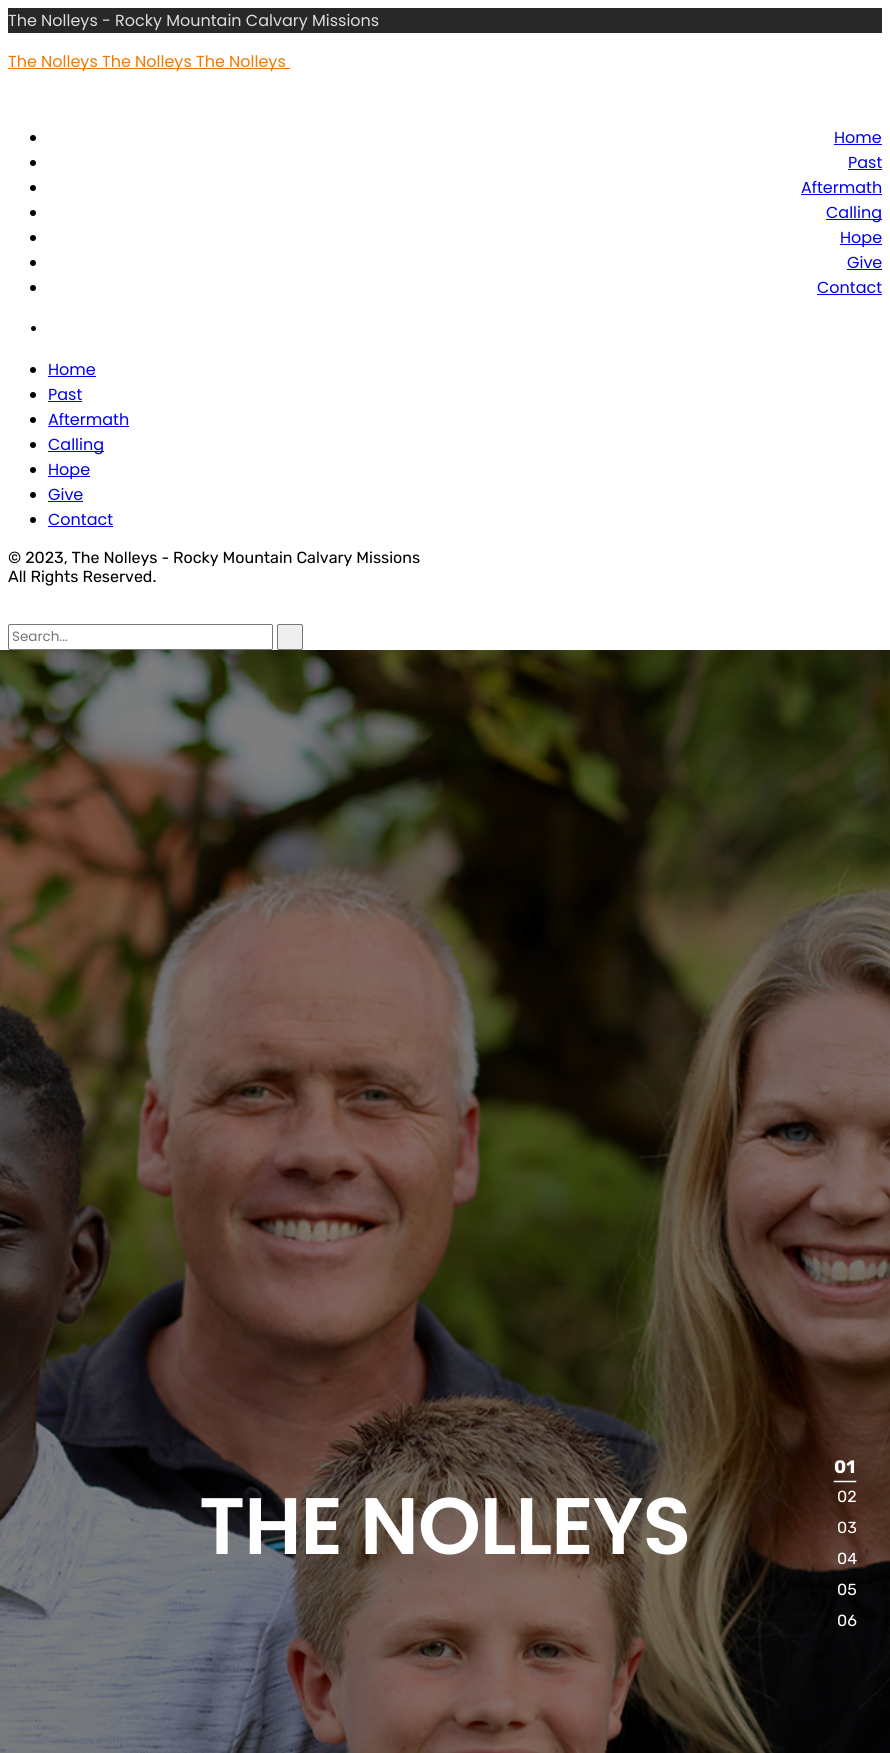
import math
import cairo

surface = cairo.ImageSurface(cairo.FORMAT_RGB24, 890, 1753)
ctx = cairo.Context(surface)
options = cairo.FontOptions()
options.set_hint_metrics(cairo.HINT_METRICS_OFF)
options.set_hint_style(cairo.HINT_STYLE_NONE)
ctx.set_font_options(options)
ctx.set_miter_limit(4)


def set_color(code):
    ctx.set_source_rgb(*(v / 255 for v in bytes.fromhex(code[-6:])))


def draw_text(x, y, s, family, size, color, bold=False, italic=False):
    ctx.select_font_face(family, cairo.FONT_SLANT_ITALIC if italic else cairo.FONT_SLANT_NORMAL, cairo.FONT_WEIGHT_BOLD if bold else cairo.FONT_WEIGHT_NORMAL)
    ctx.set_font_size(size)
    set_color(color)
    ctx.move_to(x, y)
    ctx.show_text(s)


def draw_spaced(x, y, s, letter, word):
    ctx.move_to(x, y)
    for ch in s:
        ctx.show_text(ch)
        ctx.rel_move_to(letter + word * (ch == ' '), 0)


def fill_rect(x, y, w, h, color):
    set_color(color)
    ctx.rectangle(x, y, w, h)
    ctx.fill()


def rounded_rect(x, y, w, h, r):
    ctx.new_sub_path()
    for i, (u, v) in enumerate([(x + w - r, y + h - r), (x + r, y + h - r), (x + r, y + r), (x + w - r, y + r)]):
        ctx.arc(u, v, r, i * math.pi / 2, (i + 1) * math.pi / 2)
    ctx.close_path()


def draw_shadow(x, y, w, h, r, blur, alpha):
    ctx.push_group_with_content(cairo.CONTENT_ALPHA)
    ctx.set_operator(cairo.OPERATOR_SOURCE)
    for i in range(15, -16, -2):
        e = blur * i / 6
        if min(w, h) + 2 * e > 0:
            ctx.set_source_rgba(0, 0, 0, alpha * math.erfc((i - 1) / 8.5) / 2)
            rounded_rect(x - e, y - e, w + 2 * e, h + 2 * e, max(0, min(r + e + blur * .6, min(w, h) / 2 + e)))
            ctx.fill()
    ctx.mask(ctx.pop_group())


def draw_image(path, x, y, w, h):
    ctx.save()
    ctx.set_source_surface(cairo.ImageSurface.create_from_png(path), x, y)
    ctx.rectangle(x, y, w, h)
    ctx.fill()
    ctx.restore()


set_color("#ffffff")
ctx.paint()
fill_rect(8, 8, 874, 25, "#282828")
draw_text(8, 26, "The Nolleys - Rocky Mountain Calvary Missions", "Poppins", 16, "#dddddd")
fill_rect(8, 68, 282, 1, "#f47700")
draw_text(8, 67, "The Nolleys The Nolleys The Nolleys", "Poppins", 16, "#f47700")
set_color("#000000")
ctx.new_path()
ctx.arc(33, 138, 3, 0, 2 * math.pi)
ctx.fill()
draw_text(834, 143, "Home", "Poppins", 16, "#0000ee")
fill_rect(834, 144, 48, 1, "#0000ee")
set_color("#000000")
ctx.new_path()
ctx.arc(33, 163, 3, 0, 2 * math.pi)
ctx.fill()
draw_text(848, 168, "Past", "Poppins", 16, "#0000ee")
fill_rect(848, 169, 34, 1, "#0000ee")
set_color("#000000")
ctx.new_path()
ctx.arc(33, 188, 3, 0, 2 * math.pi)
ctx.fill()
draw_text(801, 193, "Aftermath", "Poppins", 16, "#0000ee")
fill_rect(801, 194, 81, 1, "#0000ee")
set_color("#000000")
ctx.new_path()
ctx.arc(33, 213, 3, 0, 2 * math.pi)
ctx.fill()
fill_rect(826, 219, 56, 1, "#0000ee")
draw_text(826, 218, "Calling", "Poppins", 16, "#0000ee")
set_color("#000000")
ctx.new_path()
ctx.arc(33, 238, 3, 0, 2 * math.pi)
ctx.fill()
fill_rect(840, 244, 42, 1, "#0000ee")
draw_text(840, 243, "Hope", "Poppins", 16, "#0000ee")
set_color("#000000")
ctx.new_path()
ctx.arc(33, 263, 3, 0, 2 * math.pi)
ctx.fill()
draw_text(847, 268, "Give", "Poppins", 16, "#0000ee")
fill_rect(847, 269, 35, 1, "#0000ee")
set_color("#000000")
ctx.new_path()
ctx.arc(33, 288, 3, 0, 2 * math.pi)
ctx.fill()
draw_text(817, 293, "Contact", "Poppins", 16, "#0000ee")
fill_rect(817, 294, 65, 1, "#0000ee")
set_color("#000000")
ctx.new_path()
ctx.arc(33.5, 328.5, 2.5, 0, 2 * math.pi)
ctx.fill()
ctx.arc(33, 370, 3, 0, 2 * math.pi)
ctx.fill()
draw_text(48, 375, "Home", "Poppins", 16, "#0000ee")
fill_rect(48, 376, 48, 1, "#0000ee")
set_color("#000000")
ctx.new_path()
ctx.arc(33, 395, 3, 0, 2 * math.pi)
ctx.fill()
draw_text(48, 400, "Past", "Poppins", 16, "#0000ee")
fill_rect(48, 401, 34, 1, "#0000ee")
set_color("#000000")
ctx.new_path()
ctx.arc(33, 420, 3, 0, 2 * math.pi)
ctx.fill()
draw_text(48, 425, "Aftermath", "Poppins", 16, "#0000ee")
fill_rect(48, 426, 81, 1, "#0000ee")
set_color("#000000")
ctx.new_path()
ctx.arc(33, 445, 3, 0, 2 * math.pi)
ctx.fill()
fill_rect(48, 451, 56, 1, "#0000ee")
draw_text(48, 450, "Calling", "Poppins", 16, "#0000ee")
set_color("#000000")
ctx.new_path()
ctx.arc(33, 470, 3, 0, 2 * math.pi)
ctx.fill()
fill_rect(48, 476, 42, 1, "#0000ee")
draw_text(48, 475, "Hope", "Poppins", 16, "#0000ee")
set_color("#000000")
ctx.new_path()
ctx.arc(33, 495, 3, 0, 2 * math.pi)
ctx.fill()
draw_text(48, 500, "Give", "Poppins", 16, "#0000ee")
fill_rect(48, 501, 35, 1, "#0000ee")
set_color("#000000")
ctx.new_path()
ctx.arc(33, 520, 3, 0, 2 * math.pi)
ctx.fill()
draw_text(48, 525, "Contact", "Poppins", 16, "#0000ee")
fill_rect(48, 526, 65, 1, "#0000ee")
draw_text(8, 563, "© 2023, The Nolleys - Rocky Mountain Calvary Missions", "Rubik", 16, "#000000")
draw_text(8, 582, "All Rights Reserved.", "Rubik", 16, "#000000")
rounded_rect(8.5, 624.5, 264, 25, 1.5)
set_color("#767676")
ctx.set_line_width(1)
ctx.stroke()
draw_text(12, 641, "Search...", "Poppins", 13.5, "#757575")
set_color("#efefef")
rounded_rect(277.5, 624.5, 25, 25, 1.5)
ctx.fill_preserve()
set_color("#767676")
ctx.stroke()
draw_image("assets/img1.png", 0, 650, 890, 1103)
ctx.select_font_face("Poppins SemiBold")
ctx.set_font_size(80)
set_color("#ffffff")
draw_spaced(199, 1554, "THE NOLLEYS", -1, 0)
draw_text(834, 1473, "01", "Rubik", 18, "#ffffff", bold=True)
set_color("#ffffff")
draw_shadow(834, 1481, 22, 1, 0, 0.5, 1)
fill_rect(834, 1481, 22, 1, "#ffffff")
draw_text(837, 1502, "02", "Rubik", 16, "#ffffff")
draw_text(837, 1533, "03", "Rubik", 16, "#ffffff")
draw_text(837, 1564, "04", "Rubik", 16, "#ffffff")
draw_text(837, 1595, "05", "Rubik", 16, "#ffffff")
draw_text(837, 1626, "06", "Rubik", 16, "#ffffff")
surface.write_to_png("output.png")
